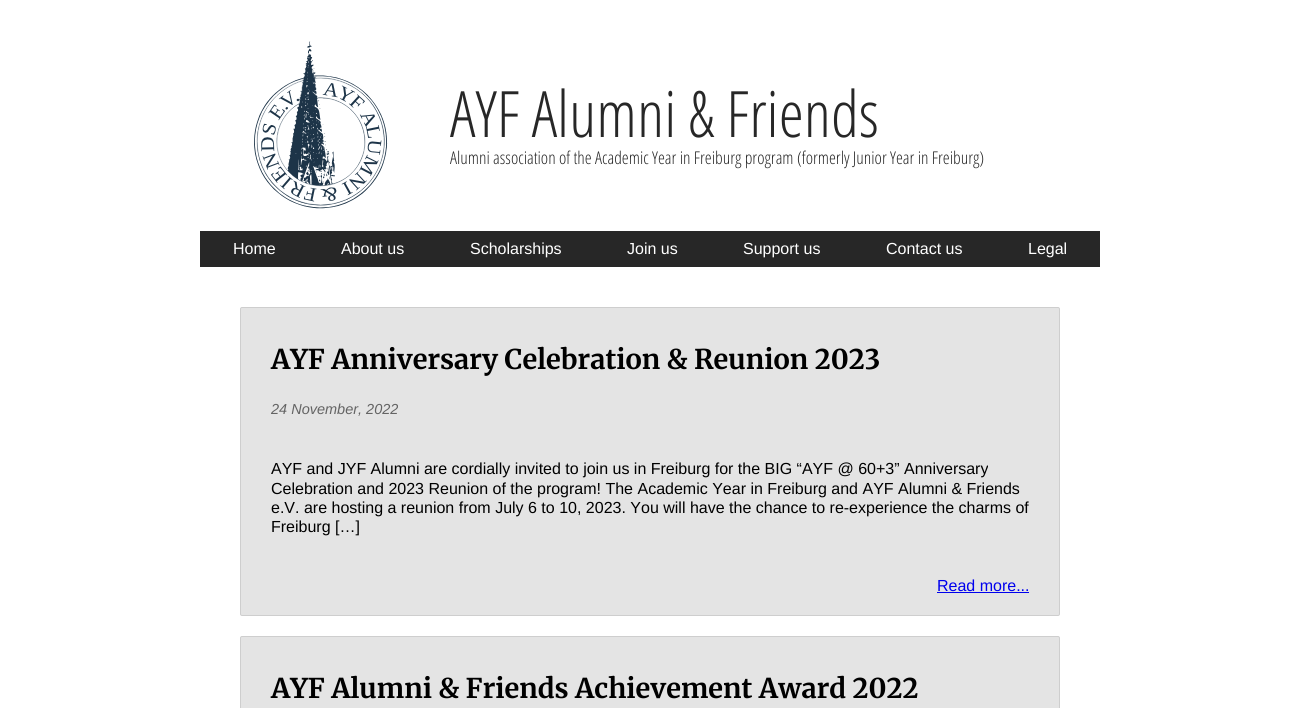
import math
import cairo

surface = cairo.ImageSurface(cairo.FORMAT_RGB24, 1300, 708)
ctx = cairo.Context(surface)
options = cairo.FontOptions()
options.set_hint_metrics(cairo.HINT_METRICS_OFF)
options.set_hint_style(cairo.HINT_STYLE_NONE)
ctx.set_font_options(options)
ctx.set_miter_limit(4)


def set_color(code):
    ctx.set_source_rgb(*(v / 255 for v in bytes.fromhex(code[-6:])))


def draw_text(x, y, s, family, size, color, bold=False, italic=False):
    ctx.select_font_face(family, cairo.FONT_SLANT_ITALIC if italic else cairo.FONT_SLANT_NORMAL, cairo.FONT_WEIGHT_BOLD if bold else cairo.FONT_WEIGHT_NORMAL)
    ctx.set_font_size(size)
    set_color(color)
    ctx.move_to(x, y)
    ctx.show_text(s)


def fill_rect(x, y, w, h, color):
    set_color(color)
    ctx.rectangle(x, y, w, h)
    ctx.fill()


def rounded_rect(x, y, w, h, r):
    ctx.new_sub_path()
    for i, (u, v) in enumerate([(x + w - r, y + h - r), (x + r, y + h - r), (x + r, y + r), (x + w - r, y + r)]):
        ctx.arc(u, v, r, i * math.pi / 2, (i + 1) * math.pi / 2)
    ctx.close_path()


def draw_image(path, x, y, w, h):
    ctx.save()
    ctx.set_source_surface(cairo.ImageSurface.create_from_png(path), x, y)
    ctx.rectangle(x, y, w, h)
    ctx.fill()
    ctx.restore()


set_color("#ffffff")
ctx.paint()
draw_image("assets/img1.png", 254, 41, 134, 168)
draw_text(450, 137, "AYF Alumni & Friends", "Open Sans Condensed Light", 64, "#272727")
draw_text(450, 164, "Alumni association of the Academic Year in Freiburg program (formerly Junior Year in Freiburg)", "Open Sans Condensed Light", 17.6, "#272727")
fill_rect(200, 231, 900, 36, "#272727")
draw_text(233, 254, "Home", "Arimo", 16, "#ffffff")
draw_text(341, 254, "About us", "Arimo", 16, "#ffffff")
draw_text(470, 254, "Scholarships", "Arimo", 16, "#ffffff")
draw_text(627, 254, "Join us", "Arimo", 16, "#ffffff")
draw_text(743, 254, "Support us", "Arimo", 16, "#ffffff")
draw_text(886, 254, "Contact us", "Arimo", 16, "#ffffff")
draw_text(1028, 254, "Legal", "Arimo", 16, "#ffffff")
set_color("#e4e4e4")
rounded_rect(240.5, 307.5, 819, 308, 1.5)
ctx.fill_preserve()
set_color("#cecece")
ctx.set_line_width(1)
ctx.stroke()
draw_text(271, 369, "AYF Anniversary Celebration & Reunion 2023", "Merriweather", 27.2, "#000000", bold=True)
draw_text(271, 414, "24 November, 2022", "Arimo", 14.5, "#646464", italic=True)
draw_text(271, 474, "AYF and JYF Alumni are cordially invited to join us in Freiburg for the BIG “AYF @ 60+3” Anniversary", "Arimo", 16, "#000000")
draw_text(271, 494, "Celebration and 2023 Reunion of the program! The Academic Year in Freiburg and AYF Alumni & Friends", "Arimo", 16, "#000000")
draw_text(271, 513, "e.V. are hosting a reunion from July 6 to 10, 2023. You will have the chance to re-experience the charms of", "Arimo", 16, "#000000")
draw_text(271, 532, "Freiburg […]", "Arimo", 16, "#000000")
draw_text(937, 591, "Read more...", "Arimo", 16, "#0000ee")
fill_rect(937, 592, 92, 1, "#0000ee")
set_color("#e4e4e4")
rounded_rect(240.5, 636.5, 819, 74, 1.5)
ctx.fill_preserve()
set_color("#cecece")
ctx.stroke()
draw_text(271, 698, "AYF Alumni & Friends Achievement Award 2022", "Merriweather", 27.2, "#000000", bold=True)
surface.write_to_png("output.png")
